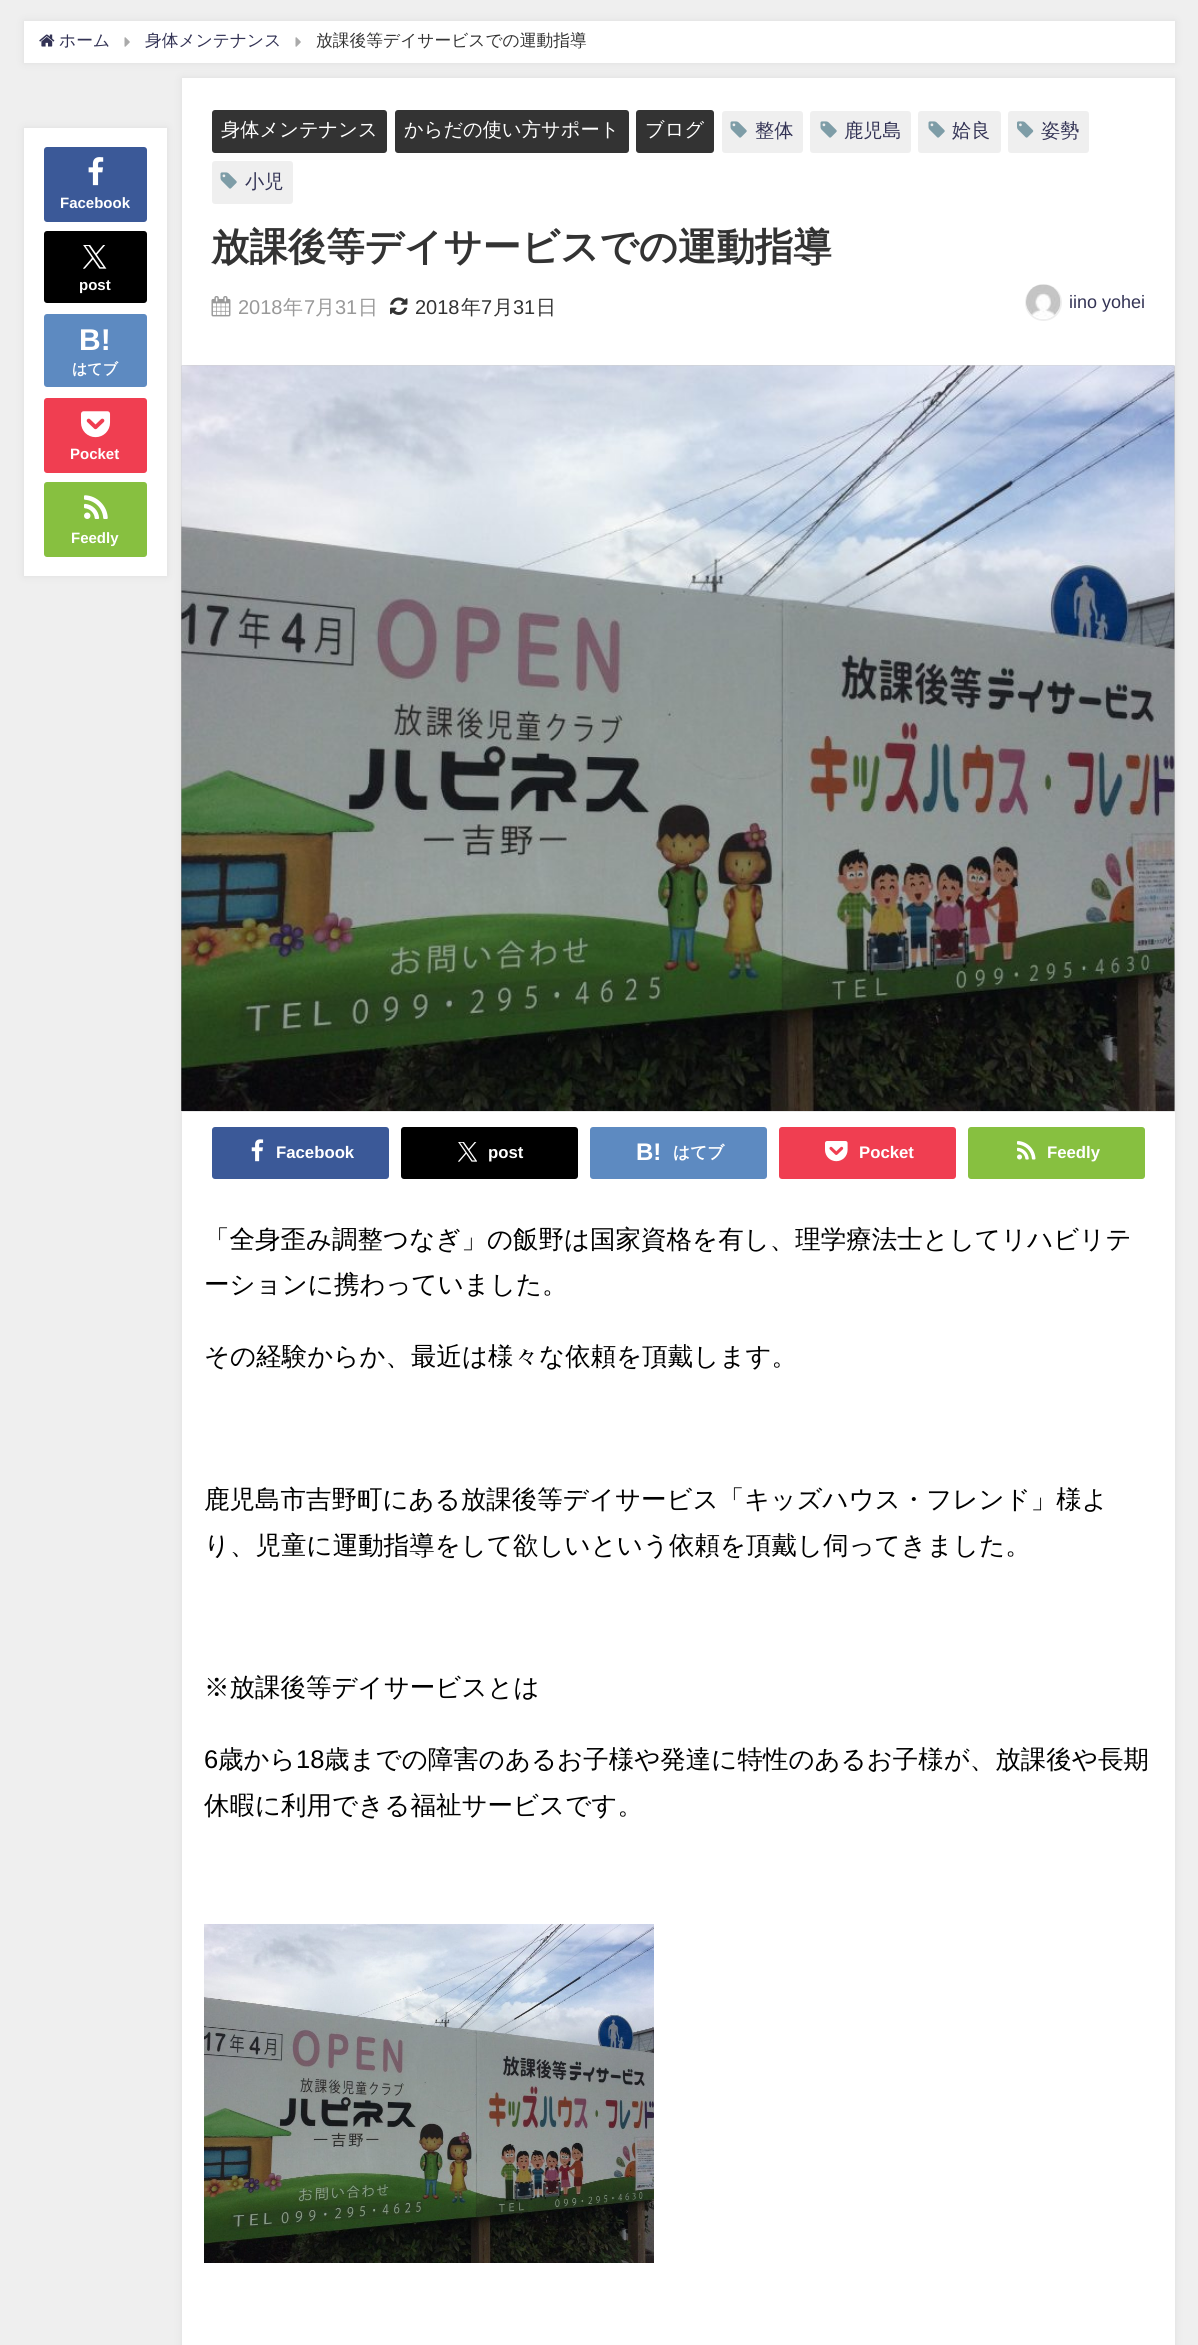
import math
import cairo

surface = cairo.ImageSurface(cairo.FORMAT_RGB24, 1198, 2345)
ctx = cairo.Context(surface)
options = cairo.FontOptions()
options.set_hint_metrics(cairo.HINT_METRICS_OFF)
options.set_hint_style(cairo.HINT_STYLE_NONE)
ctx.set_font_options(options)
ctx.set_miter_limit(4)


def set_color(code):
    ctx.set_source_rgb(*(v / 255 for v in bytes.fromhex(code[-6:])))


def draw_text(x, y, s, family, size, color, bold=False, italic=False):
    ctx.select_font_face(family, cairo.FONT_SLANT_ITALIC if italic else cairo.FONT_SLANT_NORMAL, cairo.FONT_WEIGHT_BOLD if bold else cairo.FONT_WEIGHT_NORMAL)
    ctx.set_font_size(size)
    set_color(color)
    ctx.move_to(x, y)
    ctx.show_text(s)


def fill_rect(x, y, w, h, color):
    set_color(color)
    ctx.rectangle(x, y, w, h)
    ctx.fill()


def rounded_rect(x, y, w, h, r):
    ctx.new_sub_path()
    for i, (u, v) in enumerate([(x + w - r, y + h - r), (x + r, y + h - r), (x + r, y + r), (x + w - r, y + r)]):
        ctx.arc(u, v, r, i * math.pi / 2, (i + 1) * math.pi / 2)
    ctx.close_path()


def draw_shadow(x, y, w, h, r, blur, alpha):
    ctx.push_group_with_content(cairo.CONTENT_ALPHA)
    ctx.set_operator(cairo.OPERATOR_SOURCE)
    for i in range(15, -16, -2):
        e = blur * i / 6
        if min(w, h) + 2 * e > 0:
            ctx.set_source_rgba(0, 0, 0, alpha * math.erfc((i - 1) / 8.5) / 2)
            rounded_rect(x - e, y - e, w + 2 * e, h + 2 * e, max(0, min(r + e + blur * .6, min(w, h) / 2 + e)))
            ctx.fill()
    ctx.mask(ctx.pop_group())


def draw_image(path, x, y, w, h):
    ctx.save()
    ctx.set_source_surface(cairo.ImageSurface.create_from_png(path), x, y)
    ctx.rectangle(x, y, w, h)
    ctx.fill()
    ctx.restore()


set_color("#efefef")
ctx.paint()
set_color("#969696")
draw_shadow(24, 21, 1151, 42, 0, 4, 0.2)
fill_rect(24, 21, 1151, 42, "#ffffff")
draw_image("assets/img1.png", 39, 34, 16, 13)
draw_text(59, 46, "ホーム", "WenQuanYi Zen Hei Medium", 16.75, "#333355")
draw_image("assets/img2.png", 124, 37, 6, 10)
draw_text(145, 46, "身体メンテナンス", "WenQuanYi Zen Hei Medium", 16.75, "#333355")
draw_image("assets/img2.png", 295, 37, 6, 10)
draw_text(316, 46, "放課後等デイサービスでの運動指導", "WenQuanYi Zen Hei Medium", 16.75, "#333333")
set_color("#969696")
draw_shadow(24, 128, 143, 448, 0, 4, 0.2)
draw_shadow(182, 78, 993, 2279, 0, 4, 0.2)
fill_rect(182, 78, 993, 2267, "#ffffff")
draw_image("assets/img12.png", 181, 365, 994, 746)
ctx.save()
ctx.rectangle(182, 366, 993, 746)
ctx.clip()
set_color("#e5e5e5")
draw_shadow(174, 359, 1008, 760, 0, 7.5, 1)
ctx.restore()
fill_rect(24, 128, 143, 448, "#ffffff")
set_color("#3b5998")
rounded_rect(44, 147, 103, 75, 3)
ctx.fill()
draw_image("assets/img3.png", 88, 157, 16, 29)
draw_text(60, 208, "Facebook", "Liberation Sans", 15, "#ffffff", bold=True)
set_color("#000000")
rounded_rect(44, 231, 103, 72, 3)
ctx.fill()
draw_image("assets/img4.png", 83, 245, 24, 24)
draw_text(79, 290, "post", "Liberation Sans", 15, "#ffffff", bold=True)
set_color("#5d8ac1")
rounded_rect(44, 314, 103, 73, 3)
ctx.fill()
draw_text(79, 350, "B!", "Liberation Sans", 30, "#ffffff", bold=True)
draw_text(72, 374, "はてブ", "WenQuanYi Zen Hei", 15, "#ffffff", bold=True)
set_color("#f03e51")
rounded_rect(44, 398, 103, 75, 3)
ctx.fill()
draw_image("assets/img5.png", 81, 411, 30, 27)
draw_text(70, 459, "Pocket", "Liberation Sans", 15, "#ffffff", bold=True)
set_color("#87c040")
rounded_rect(44, 482, 103, 75, 3)
ctx.fill()
draw_image("assets/img6.png", 84, 495, 24, 24)
draw_text(71, 543, "Feedly", "Liberation Sans", 15, "#ffffff", bold=True)
set_color("#333333")
rounded_rect(212, 110, 175, 43, 3)
ctx.fill()
draw_text(221, 136, "身体メンテナンス", "WenQuanYi Zen Hei Medium", 19.25, "#ffffff")
set_color("#333333")
rounded_rect(395, 110, 234, 43, 3)
ctx.fill()
draw_text(404, 136, "からだの使い方サポート", "WenQuanYi Zen Hei Medium", 19.25, "#ffffff")
set_color("#333333")
rounded_rect(636, 110, 78, 43, 3)
ctx.fill()
draw_text(645, 136, "ブログ", "WenQuanYi Zen Hei Medium", 19.25, "#ffffff")
set_color("#efefef")
rounded_rect(722, 111, 81, 42, 3)
ctx.fill()
draw_image("assets/img7.png", 730, 121, 17, 17)
draw_text(755, 137, "整体", "WenQuanYi Zen Hei Medium", 19.25, "#333355")
set_color("#efefef")
rounded_rect(810, 111, 101, 42, 3)
ctx.fill()
draw_image("assets/img7.png", 820, 121, 17, 17)
draw_text(844, 137, "鹿児島", "WenQuanYi Zen Hei Medium", 19.25, "#333355")
set_color("#efefef")
rounded_rect(918, 111, 83, 42, 3)
ctx.fill()
draw_image("assets/img7.png", 928, 121, 17, 17)
draw_text(952, 137, "姶良", "WenQuanYi Zen Hei Medium", 19.25, "#333355")
set_color("#efefef")
rounded_rect(1008, 111, 81, 42, 3)
ctx.fill()
draw_image("assets/img8.png", 1017, 121, 17, 17)
draw_text(1041, 137, "姿勢", "WenQuanYi Zen Hei Medium", 19.25, "#333355")
set_color("#efefef")
rounded_rect(212, 161, 81, 43, 3)
ctx.fill()
draw_image("assets/img7.png", 220, 172, 17, 17)
draw_text(245, 188, "小児", "WenQuanYi Zen Hei Medium", 19.25, "#333355")
draw_text(211, 260, "放課後等デイサービスでの運動指導", "WenQuanYi Zen Hei", 38.4, "#333333", bold=True)
draw_image("assets/img9.png", 211, 296, 20, 21)
draw_text(238, 314, "2018", "Liberation Sans", 20, "#999999")
draw_text(283, 314, "年", "WenQuanYi Zen Hei Medium", 20, "#999999")
draw_text(304, 314, "7", "Liberation Sans", 20, "#999999")
draw_text(315, 314, "月", "WenQuanYi Zen Hei Medium", 20, "#999999")
draw_text(335, 314, "31", "Liberation Sans", 20, "#999999")
draw_text(358, 314, "日", "WenQuanYi Zen Hei Medium", 20, "#999999")
draw_image("assets/img10.png", 390, 297, 18, 18)
draw_text(415, 314, "2018", "Liberation Sans", 20, "#333333")
draw_text(461, 314, "年", "WenQuanYi Zen Hei Medium", 20, "#333333")
draw_text(481, 314, "7", "Liberation Sans", 20, "#333333")
draw_text(493, 314, "月", "WenQuanYi Zen Hei Medium", 20, "#333333")
draw_text(513, 314, "31", "Liberation Sans", 20, "#333333")
draw_text(536, 314, "日", "WenQuanYi Zen Hei Medium", 20, "#333333")
ctx.new_path()
ctx.arc(1043.5, 302.5, 17.5, 0, 2 * math.pi)
set_color("#eeeeee")
ctx.stroke()
draw_image("assets/img11.png", 1026, 284, 35, 35)
draw_text(1069, 308, "iino yohei", "Liberation Sans", 18, "#333355")
draw_image("assets/img13.png", 181, 365, 994, 746)
draw_image("assets/img14.png", 181, 365, 994, 746)
set_color("#3b5998")
rounded_rect(212, 1127, 177, 52, 3)
ctx.fill()
draw_image("assets/img15.png", 251, 1139, 13, 23)
draw_text(276, 1158, "Facebook", "Liberation Sans", 16.75, "#ffffff", bold=True)
set_color("#000000")
rounded_rect(401, 1127, 177, 52, 3)
ctx.fill()
draw_image("assets/img16.png", 458, 1142, 19, 20)
draw_text(488, 1158, "post", "Liberation Sans", 16.75, "#ffffff", bold=True)
set_color("#5d8ac1")
rounded_rect(590, 1127, 177, 52, 3)
ctx.fill()
draw_text(636, 1160, "B!", "Liberation Sans", 24, "#ffffff", bold=True)
draw_text(673, 1158, "はてブ", "WenQuanYi Zen Hei", 16.75, "#ffffff", bold=True)
set_color("#f03e51")
rounded_rect(779, 1127, 177, 52, 3)
ctx.fill()
draw_image("assets/img17.png", 825, 1141, 23, 21)
draw_text(859, 1158, "Pocket", "Liberation Sans", 16.75, "#ffffff", bold=True)
set_color("#87c040")
rounded_rect(968, 1127, 177, 52, 3)
ctx.fill()
draw_image("assets/img18.png", 1017, 1141, 19, 19)
draw_text(1047, 1158, "Feedly", "Liberation Sans", 16.75, "#ffffff", bold=True)
draw_text(204, 1248, "「全身歪み調整つなぎ」の飯野は国家資格を有し、理学療法士としてリハビリテ", "WenQuanYi Zen Hei Medium", 25.5, "#000000")
draw_text(204, 1293, "ーションに携わっていました。", "WenQuanYi Zen Hei Medium", 25.5, "#000000")
draw_text(204, 1365, "その経験からか、最近は様々な依頼を頂戴します。", "WenQuanYi Zen Hei Medium", 25.5, "#000000")
draw_text(204, 1508, "鹿児島市吉野町にある放課後等デイサービス「キッズハウス・フレンド」様よ", "WenQuanYi Zen Hei Medium", 25.5, "#000000")
draw_text(204, 1554, "り、児童に運動指導をして欲しいという依頼を頂戴し伺ってきました。", "WenQuanYi Zen Hei Medium", 25.5, "#000000")
draw_text(204, 1696, "※放課後等デイサービスとは", "WenQuanYi Zen Hei Medium", 25.5, "#000000")
draw_text(204, 1768, "6", "Liberation Sans", 25.5, "#000000")
draw_text(218, 1768, "歳から", "WenQuanYi Zen Hei Medium", 25.5, "#000000")
draw_text(296, 1768, "18", "Liberation Sans", 25.5, "#000000")
draw_text(324, 1768, "歳までの障害のあるお子様や発達に特性のあるお子様が、放課後や長期", "WenQuanYi Zen Hei Medium", 25.5, "#000000")
draw_text(204, 1814, "休暇に利用できる福祉サービスです。", "WenQuanYi Zen Hei Medium", 25.5, "#000000")
draw_image("assets/img19.png", 204, 1924, 450, 339)
surface.write_to_png("output.png")
